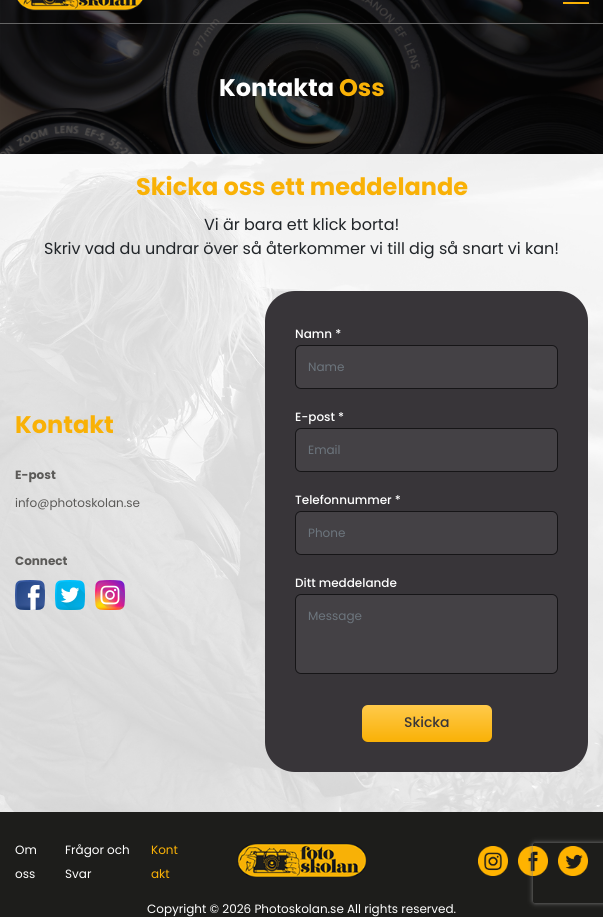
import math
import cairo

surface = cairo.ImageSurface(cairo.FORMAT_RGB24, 603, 917)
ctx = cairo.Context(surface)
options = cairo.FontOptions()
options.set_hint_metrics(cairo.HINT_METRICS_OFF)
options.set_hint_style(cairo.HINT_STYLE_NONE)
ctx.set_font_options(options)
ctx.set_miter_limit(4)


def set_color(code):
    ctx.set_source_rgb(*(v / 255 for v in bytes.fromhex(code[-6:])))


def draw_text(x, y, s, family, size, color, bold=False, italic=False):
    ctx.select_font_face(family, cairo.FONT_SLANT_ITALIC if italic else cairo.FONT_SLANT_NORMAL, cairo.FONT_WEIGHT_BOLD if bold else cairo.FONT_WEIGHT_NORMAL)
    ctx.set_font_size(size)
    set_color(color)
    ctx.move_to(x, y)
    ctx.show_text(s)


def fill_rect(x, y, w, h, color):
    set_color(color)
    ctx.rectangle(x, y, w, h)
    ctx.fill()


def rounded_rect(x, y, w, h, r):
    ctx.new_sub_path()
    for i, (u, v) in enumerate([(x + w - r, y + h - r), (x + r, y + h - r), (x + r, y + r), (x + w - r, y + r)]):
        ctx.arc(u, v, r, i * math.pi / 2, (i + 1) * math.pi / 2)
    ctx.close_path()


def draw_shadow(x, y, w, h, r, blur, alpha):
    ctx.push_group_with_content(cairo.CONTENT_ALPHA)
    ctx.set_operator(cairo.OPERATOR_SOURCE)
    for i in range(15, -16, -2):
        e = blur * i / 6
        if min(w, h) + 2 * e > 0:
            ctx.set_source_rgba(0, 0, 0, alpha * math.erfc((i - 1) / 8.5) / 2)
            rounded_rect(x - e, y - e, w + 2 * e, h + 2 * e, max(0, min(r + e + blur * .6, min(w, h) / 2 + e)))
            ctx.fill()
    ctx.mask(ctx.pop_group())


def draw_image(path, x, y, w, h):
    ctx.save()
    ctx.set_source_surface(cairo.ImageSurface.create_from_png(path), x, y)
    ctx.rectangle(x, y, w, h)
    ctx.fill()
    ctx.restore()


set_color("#1d1d1b")
ctx.paint()
draw_image("assets/img2.png", 0, 0, 603, 154)
fill_rect(0, 23, 603, 1, "#656565")
draw_image("assets/img1.png", 16, 0, 128, 11)
fill_rect(563, 2, 26, 2, "#f9b106")
draw_text(219, 96, "Kontakta", "Poppins", 24, "#ffffff", bold=True)
draw_text(339, 96, "Oss", "Poppins", 24, "#f9b106", bold=True)
draw_image("assets/img3.png", 0, 154, 603, 658)
draw_text(136, 195, "Skicka oss ett meddelande", "Poppins", 24, "#f9b106", bold=True)
draw_text(204, 230, "Vi är bara ett klick borta!", "Poppins", 16, "#212529")
draw_text(44, 254, "Skriv vad du undrar över så återkommer vi till dig så snart vi kan!", "Poppins", 16, "#212529")
draw_text(15, 433, "Kontakt", "Poppins", 24, "#f9b106", bold=True)
draw_text(15, 479, "E-post", "Poppins", 12, "#5b5a58", bold=True)
draw_text(15, 507, "info@photoskolan.se", "Poppins", 12, "#5b5a58")
draw_text(15, 565, "Connect", "Poppins", 12, "#5b5a58", bold=True)
draw_image("assets/img4.png", 15, 580, 30, 30)
draw_image("assets/img5.png", 55, 580, 30, 30)
draw_image("assets/img6.png", 95, 580, 30, 30)
set_color("#383539")
rounded_rect(265, 291, 323, 481, 30)
ctx.fill()
draw_text(295, 338, "Namn *", "Poppins Medium", 12, "#ffffff")
set_color("#444145")
rounded_rect(295.5, 345.5, 262, 43, 5.5)
ctx.fill_preserve()
set_color("#161517")
ctx.set_line_width(1)
ctx.stroke()
draw_text(308, 371, "Name", "Poppins", 12, "#6c757d")
draw_text(295, 421, "E-post *", "Poppins Medium", 12, "#ffffff")
set_color("#444145")
rounded_rect(295.5, 428.5, 262, 43, 5.5)
ctx.fill_preserve()
set_color("#161517")
ctx.stroke()
draw_text(308, 454, "Email", "Poppins", 12, "#6c757d")
draw_text(295, 504, "Telefonnummer *", "Poppins Medium", 12, "#ffffff")
set_color("#444145")
rounded_rect(295.5, 511.5, 262, 43, 5.5)
ctx.fill_preserve()
set_color("#161517")
ctx.stroke()
draw_text(308, 537, "Phone", "Poppins", 12, "#6c757d")
draw_text(295, 587, "Ditt meddelande", "Poppins Medium", 12, "#ffffff")
set_color("#444145")
rounded_rect(295.5, 594.5, 262, 79, 5.5)
ctx.fill_preserve()
set_color("#161517")
ctx.stroke()
draw_text(308, 620, "Message", "Poppins", 12, "#6c757d")
gradient = cairo.LinearGradient(427, 742, 427, 705)
gradient.add_color_stop_rgba(0, 0.976, 0.694, 0.024, 1)
gradient.add_color_stop_rgba(1, 1, 0.792, 0.294, 1)
ctx.set_source(gradient)
rounded_rect(362, 705, 130, 37, 6)
ctx.fill()
draw_text(404, 727, "Skicka", "Poppins Medium", 14, "#383539")
draw_text(15, 854, "Om", "Poppins", 12, "#ffffff")
draw_text(15, 878, "oss", "Poppins", 12, "#ffffff")
draw_text(65, 854, "Frågor och", "Poppins", 12, "#ffffff")
draw_text(65, 878, "Svar", "Poppins", 12, "#ffffff")
draw_text(151, 854, "Kont", "Poppins", 12, "#f9b106")
draw_text(151, 878, "akt", "Poppins", 12, "#f9b106")
draw_image("assets/img7.png", 237, 843, 130, 35)
draw_image("assets/img8.png", 478, 846, 30, 30)
draw_image("assets/img9.png", 518, 846, 30, 30)
draw_image("assets/img10.png", 558, 846, 30, 30)
draw_text(147, 913, "Copyright © 2026 Photoskolan.se All rights reserved.", "Poppins", 12, "#ffffff")
ctx.save()
ctx.set_fill_rule(cairo.FILL_RULE_EVEN_ODD)
ctx.new_path()
ctx.move_to(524, 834)
ctx.line_to(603, 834)
ctx.line_to(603, 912)
ctx.line_to(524, 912)
ctx.close_path()
ctx.move_to(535, 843)
ctx.line_to(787, 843)
ctx.curve_to(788, 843, 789, 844, 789, 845)
ctx.line_to(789, 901)
ctx.curve_to(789, 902, 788, 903, 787, 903)
ctx.line_to(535, 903)
ctx.curve_to(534, 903, 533, 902, 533, 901)
ctx.line_to(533, 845)
ctx.curve_to(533, 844, 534, 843, 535, 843)
ctx.close_path()
ctx.clip()
set_color("#808080")
draw_shadow(533, 843, 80, 60, 2, 2.5, 1)
ctx.restore()
surface.write_to_png("output.png")
